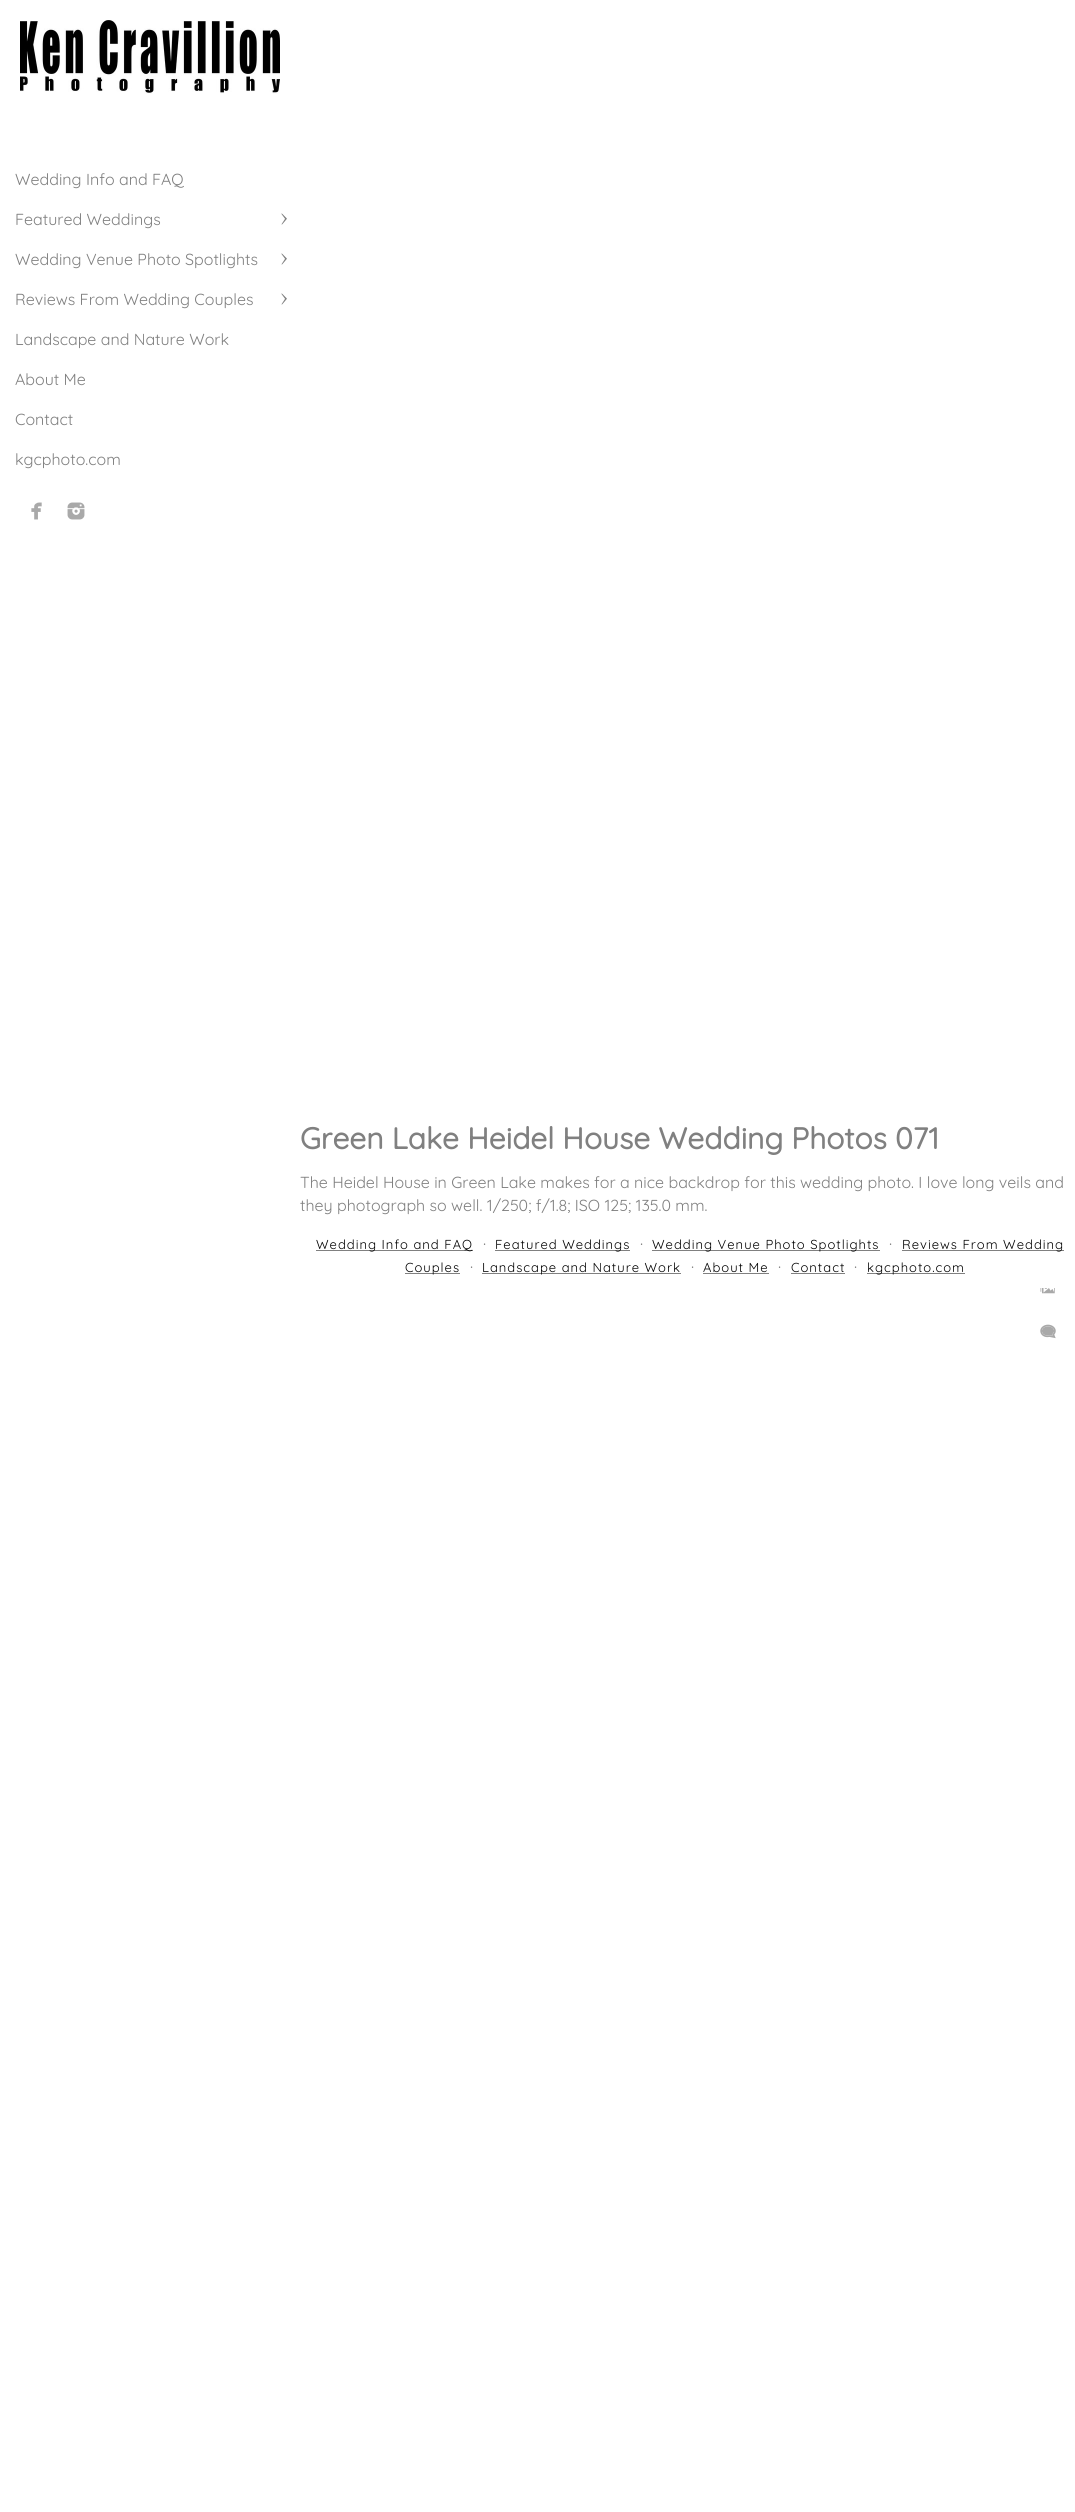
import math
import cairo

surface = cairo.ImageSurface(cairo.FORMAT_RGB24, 1075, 2512)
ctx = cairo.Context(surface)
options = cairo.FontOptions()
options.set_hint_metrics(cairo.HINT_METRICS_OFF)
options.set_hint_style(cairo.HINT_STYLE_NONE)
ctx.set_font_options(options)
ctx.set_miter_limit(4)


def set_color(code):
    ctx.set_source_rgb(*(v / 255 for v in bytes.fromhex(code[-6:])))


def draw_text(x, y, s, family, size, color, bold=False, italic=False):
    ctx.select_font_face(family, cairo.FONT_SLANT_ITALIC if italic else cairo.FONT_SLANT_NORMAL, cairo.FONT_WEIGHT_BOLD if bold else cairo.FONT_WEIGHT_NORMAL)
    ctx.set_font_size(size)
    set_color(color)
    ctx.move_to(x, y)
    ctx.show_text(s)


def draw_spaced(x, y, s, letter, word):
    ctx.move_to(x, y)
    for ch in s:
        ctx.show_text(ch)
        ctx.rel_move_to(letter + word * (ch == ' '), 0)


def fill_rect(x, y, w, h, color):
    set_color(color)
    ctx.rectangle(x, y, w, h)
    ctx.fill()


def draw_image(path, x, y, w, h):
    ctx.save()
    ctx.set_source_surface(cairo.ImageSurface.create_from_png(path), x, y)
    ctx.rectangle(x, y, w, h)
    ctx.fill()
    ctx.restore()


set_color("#ffffff")
ctx.paint()
draw_image("assets/img1.png", 20, 20, 260, 74)
draw_text(15, 185, "Wedding Info and FAQ", "Quicksand Light", 16, "#808080")
draw_text(15, 225, "Featured Weddings", "Quicksand Light", 16, "#808080")
draw_image("assets/img2.png", 281, 213, 6, 12)
draw_text(15, 265, "Wedding Venue Photo Spotlights", "Quicksand Light", 16, "#808080")
draw_image("assets/img2.png", 281, 253, 6, 12)
draw_text(15, 305, "Reviews From Wedding Couples", "Quicksand Light", 16, "#808080")
draw_image("assets/img2.png", 281, 293, 6, 12)
draw_text(15, 345, "Landscape and Nature Work", "Quicksand Light", 16, "#808080")
draw_text(15, 385, "About Me", "Quicksand Light", 16, "#808080")
draw_text(15, 425, "Contact", "Quicksand Light", 16, "#808080")
draw_text(15, 465, "kgcphoto.com", "Quicksand Light", 16, "#808080")
draw_image("assets/img3.png", 31, 502, 11, 18)
draw_image("assets/img4.png", 67, 502, 18, 18)
draw_text(300, 1149, "Green Lake Heidel House Wedding Photos 071", "Quicksand", 30, "#808080", bold=True)
draw_text(300, 1188, "The Heidel House in Green Lake makes for a nice backdrop for this wedding photo. I love long veils and", "Quicksand Light", 16, "#808080")
draw_text(300, 1211, "they photograph so well. 1/250; f/1.8; ISO 125; 135.0 mm.", "Quicksand Light", 16, "#808080")
fill_rect(316, 1250, 157, 1, "#808080")
ctx.set_font_size(13)
set_color("#000000")
draw_spaced(316, 1249, "Wedding Info and FAQ", 1, 0)
draw_text(483, 1249, "·", "Quicksand Light", 16, "#808080")
fill_rect(495, 1250, 135, 1, "#808080")
ctx.set_font_size(13)
set_color("#000000")
draw_spaced(495, 1249, "Featured Weddings", 1, 0)
draw_text(640, 1249, "·", "Quicksand Light", 16, "#808080")
fill_rect(652, 1250, 228, 1, "#808080")
ctx.set_font_size(13)
set_color("#000000")
draw_spaced(652, 1249, "Wedding Venue Photo Spotlights", 1, 0)
draw_text(889, 1249, "·", "Quicksand Light", 16, "#808080")
fill_rect(902, 1250, 162, 1, "#808080")
ctx.set_font_size(13)
set_color("#000000")
draw_spaced(902, 1249, "Reviews From Wedding", 1, 0)
fill_rect(405, 1273, 55, 1, "#808080")
set_color("#000000")
draw_spaced(405, 1272, "Couples", 1, 0)
draw_text(470, 1272, "·", "Quicksand Light", 16, "#808080")
fill_rect(482, 1273, 199, 1, "#808080")
ctx.set_font_size(13)
set_color("#000000")
draw_spaced(482, 1272, "Landscape and Nature Work", 1, 0)
draw_text(691, 1272, "·", "Quicksand Light", 16, "#808080")
ctx.set_font_size(13)
set_color("#000000")
draw_spaced(703, 1272, "About Me", 1, 0)
fill_rect(703, 1273, 66, 1, "#808080")
draw_text(778, 1272, "·", "Quicksand Light", 16, "#808080")
ctx.set_font_size(13)
set_color("#000000")
draw_spaced(791, 1272, "Contact", 1, 0)
fill_rect(791, 1273, 54, 1, "#808080")
draw_text(854, 1272, "·", "Quicksand Light", 16, "#808080")
fill_rect(867, 1273, 98, 1, "#808080")
ctx.set_font_size(13)
set_color("#000000")
draw_spaced(867, 1272, "kgcphoto.com", 1, 0)
draw_image("assets/img5.png", 1040, 1288, 15, 6)
draw_image("assets/img6.png", 1040, 1324, 16, 15)
surface.write_to_png("output.png")
